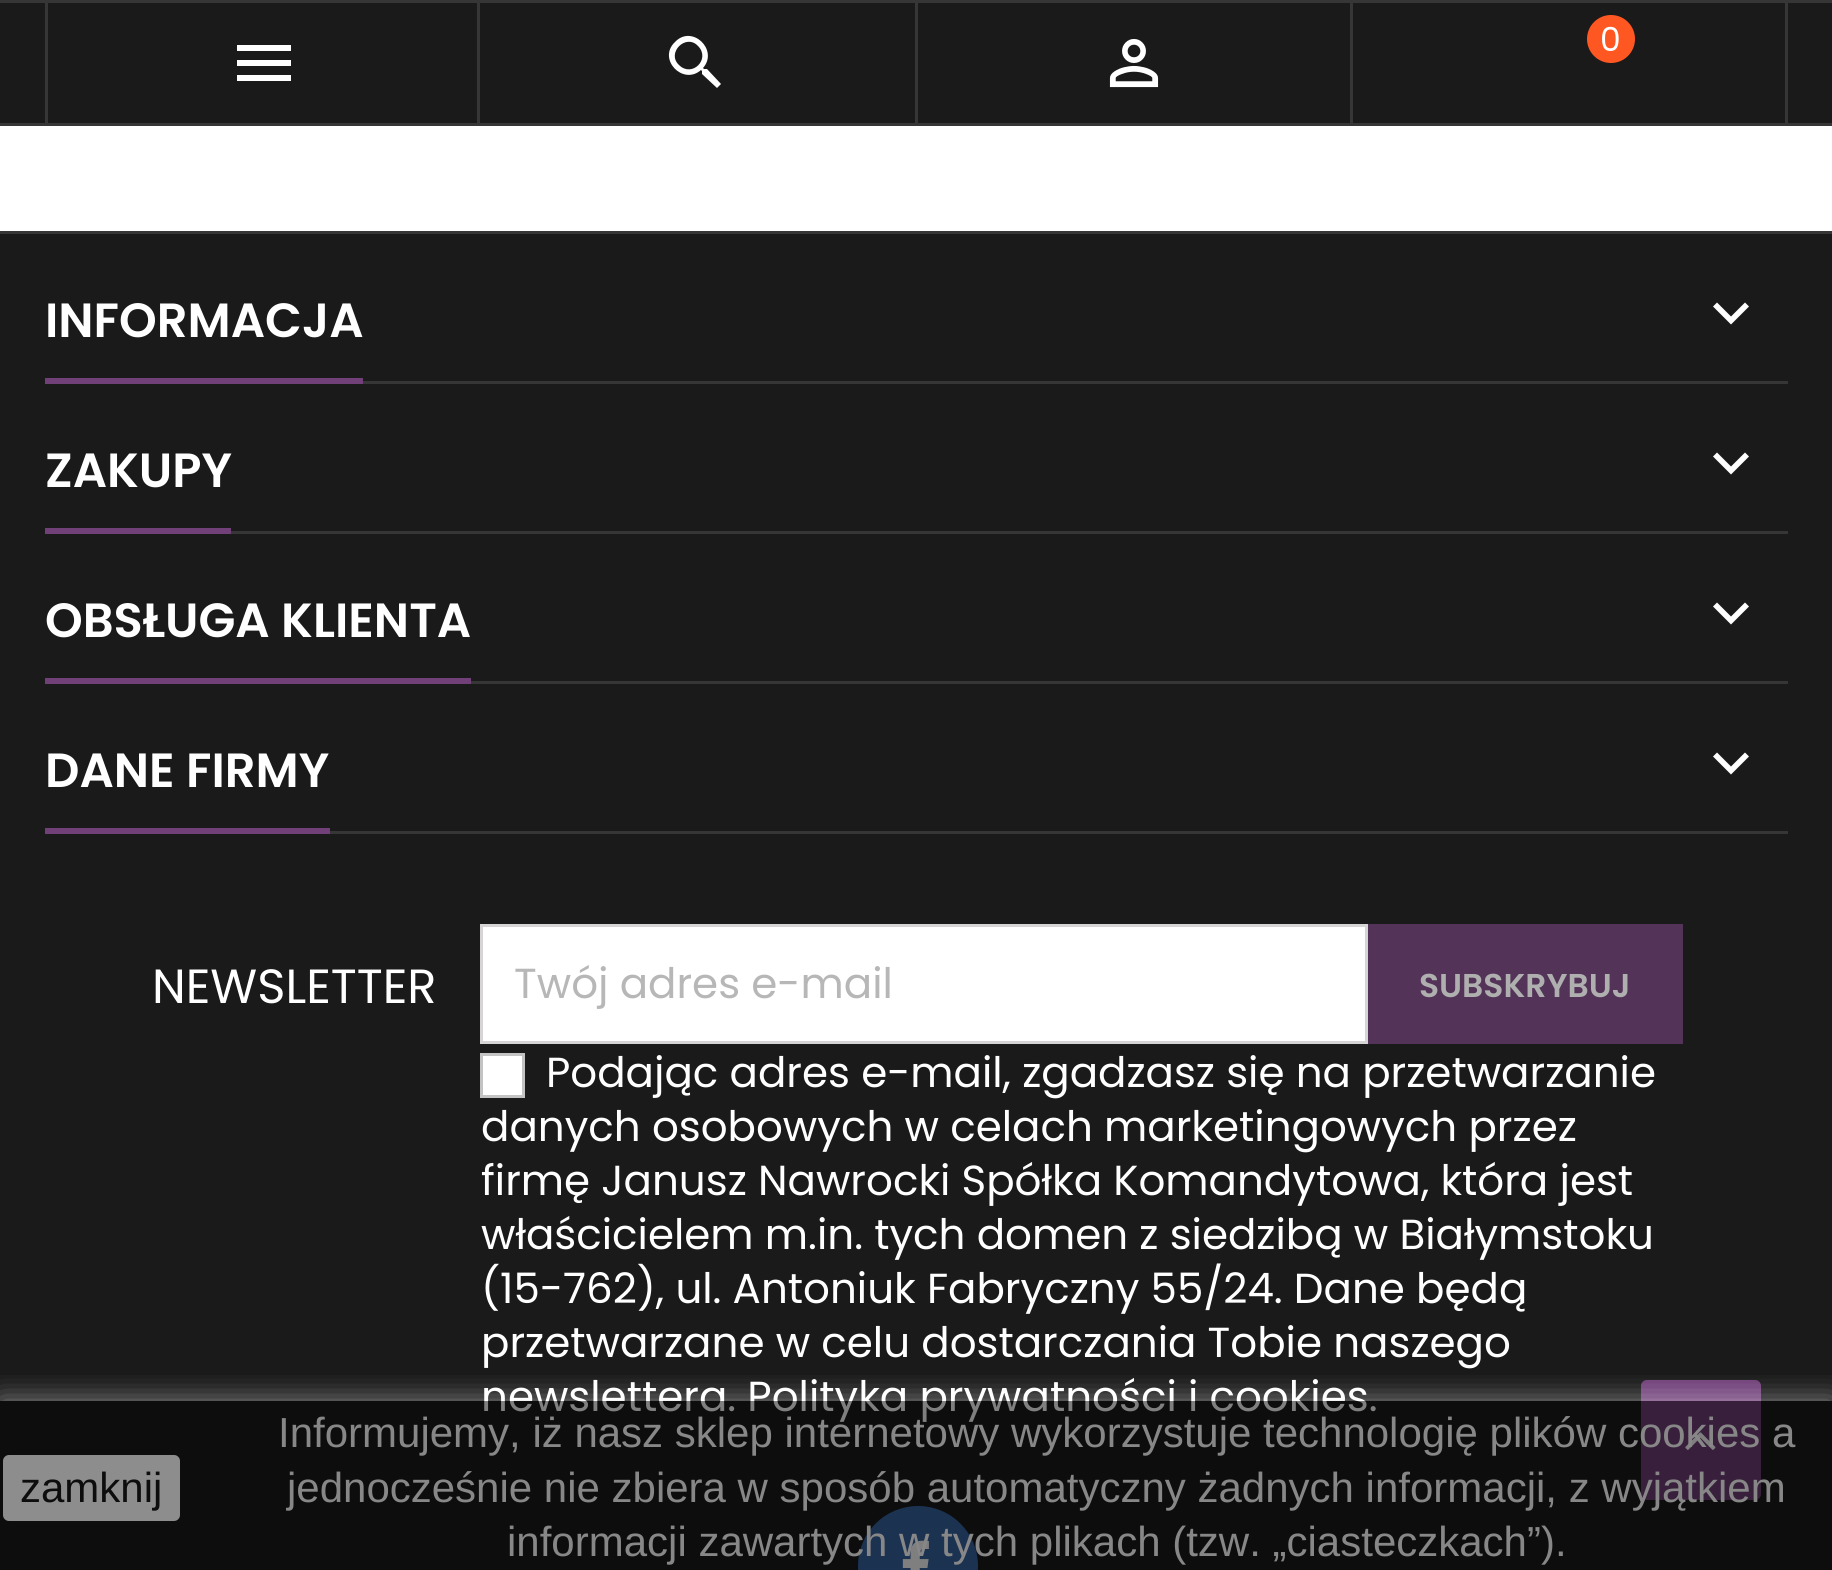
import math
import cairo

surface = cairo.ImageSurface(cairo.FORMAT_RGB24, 1832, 1570)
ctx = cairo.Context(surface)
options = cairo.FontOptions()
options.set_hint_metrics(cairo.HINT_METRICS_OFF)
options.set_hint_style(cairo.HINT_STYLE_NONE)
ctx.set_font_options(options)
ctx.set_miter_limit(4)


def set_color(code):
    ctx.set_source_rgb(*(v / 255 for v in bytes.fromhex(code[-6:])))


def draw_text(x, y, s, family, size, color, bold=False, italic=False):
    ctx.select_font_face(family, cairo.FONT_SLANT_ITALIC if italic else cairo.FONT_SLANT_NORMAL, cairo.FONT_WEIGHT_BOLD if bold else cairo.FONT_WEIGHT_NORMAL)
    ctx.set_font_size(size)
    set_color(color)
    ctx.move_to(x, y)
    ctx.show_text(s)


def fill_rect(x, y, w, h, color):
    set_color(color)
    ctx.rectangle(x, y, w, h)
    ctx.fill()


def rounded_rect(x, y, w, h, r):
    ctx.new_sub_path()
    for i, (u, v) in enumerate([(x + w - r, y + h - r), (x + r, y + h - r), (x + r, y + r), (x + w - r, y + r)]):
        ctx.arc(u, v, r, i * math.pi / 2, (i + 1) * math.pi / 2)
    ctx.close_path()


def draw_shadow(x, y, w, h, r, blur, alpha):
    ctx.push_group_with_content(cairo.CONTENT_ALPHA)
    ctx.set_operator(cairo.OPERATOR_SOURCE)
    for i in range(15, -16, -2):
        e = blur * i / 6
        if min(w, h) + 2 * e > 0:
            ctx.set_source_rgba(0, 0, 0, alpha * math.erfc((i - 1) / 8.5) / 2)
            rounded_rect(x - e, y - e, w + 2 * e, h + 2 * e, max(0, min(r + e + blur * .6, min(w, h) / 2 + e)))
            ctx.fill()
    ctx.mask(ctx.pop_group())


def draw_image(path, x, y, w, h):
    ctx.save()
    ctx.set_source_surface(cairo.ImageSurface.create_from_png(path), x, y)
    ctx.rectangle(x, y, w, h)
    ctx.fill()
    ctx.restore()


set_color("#ffffff")
ctx.paint()
fill_rect(0, 3, 1832, 120, "#1b1a1b")
fill_rect(0, 0, 1832, 3, "#363636")
fill_rect(0, 123, 1832, 3, "#363636")
fill_rect(477, 3, 3, 120, "#363636")
fill_rect(45, 3, 3, 120, "#363636")
set_color("#ffffff")
ctx.new_path()
ctx.move_to(237, 45)
ctx.line_to(291, 45)
ctx.line_to(291, 51)
ctx.line_to(237, 51)
ctx.close_path()
ctx.move_to(237, 66)
ctx.line_to(237, 60)
ctx.line_to(291, 60)
ctx.line_to(291, 66)
ctx.close_path()
ctx.move_to(237, 81)
ctx.line_to(237, 75)
ctx.line_to(291, 75)
ctx.line_to(291, 81)
ctx.close_path()
ctx.fill()
fill_rect(915, 3, 3, 120, "#363636")
set_color("#ffffff")
ctx.new_path()
ctx.move_to(679, 65)
ctx.curve_to(692, 78, 711, 59, 698, 46)
ctx.curve_to(686, 33, 666, 53, 679, 65)
ctx.close_path()
ctx.move_to(707, 69)
ctx.line_to(721, 84)
ctx.line_to(717, 88)
ctx.line_to(702, 74)
ctx.line_to(702, 71)
ctx.line_to(701, 70)
ctx.curve_to(683, 86, 657, 59, 675, 42)
ctx.curve_to(692, 24, 719, 50, 703, 68)
ctx.line_to(704, 69)
ctx.close_path()
ctx.fill()
fill_rect(1350, 3, 3, 120, "#363636")
draw_image("assets/img1.png", 1109, 39, 50, 49)
fill_rect(1785, 3, 3, 120, "#363636")
set_color("#ff5722")
ctx.arc(1611, 39, 24, 0, 2 * math.pi)
ctx.fill()
draw_text(1600, 51, "0", "Poppins", 33, "#ffffff")
fill_rect(0, 234, 1832, 1336, "#1b1a1b")
fill_rect(0, 231, 1832, 3, "#363636")
fill_rect(363, 381, 1425, 3, "#363636")
fill_rect(45, 378, 318, 6, "#714079")
draw_text(45, 337, "INFORMACJA", "Poppins SemiBold", 48, "#ffffff")
ctx.new_path()
ctx.move_to(1717, 302.5)
ctx.line_to(1731, 316.5)
ctx.line_to(1745, 302.5)
ctx.line_to(1749, 306.5)
ctx.line_to(1731, 324.5)
ctx.line_to(1713, 306.5)
ctx.close_path()
ctx.fill()
fill_rect(231, 531, 1557, 3, "#363636")
fill_rect(45, 528, 186, 6, "#714079")
draw_text(45, 487, "ZAKUPY", "Poppins SemiBold", 48, "#ffffff")
ctx.new_path()
ctx.move_to(1717, 452.5)
ctx.line_to(1731, 466.5)
ctx.line_to(1745, 452.5)
ctx.line_to(1749, 456.5)
ctx.line_to(1731, 474.5)
ctx.line_to(1713, 456.5)
ctx.close_path()
ctx.fill()
fill_rect(471, 681, 1317, 3, "#363636")
fill_rect(45, 678, 426, 6, "#714079")
draw_text(45, 637, "OBSŁUGA KLIENTA", "Poppins SemiBold", 48, "#ffffff")
ctx.new_path()
ctx.move_to(1717, 602.5)
ctx.line_to(1731, 616.5)
ctx.line_to(1745, 602.5)
ctx.line_to(1749, 606.5)
ctx.line_to(1731, 624.5)
ctx.line_to(1713, 606.5)
ctx.close_path()
ctx.fill()
fill_rect(330, 831, 1458, 3, "#363636")
fill_rect(45, 828, 285, 6, "#714079")
draw_text(45, 787, "DANE FIRMY", "Poppins SemiBold", 48, "#ffffff")
ctx.new_path()
ctx.move_to(1717, 752.5)
ctx.line_to(1731, 766.5)
ctx.line_to(1745, 752.5)
ctx.line_to(1749, 756.5)
ctx.line_to(1731, 774.5)
ctx.line_to(1713, 756.5)
ctx.close_path()
ctx.fill()
set_color("#714079")
rounded_rect(1641, 1380, 120, 120, 6)
ctx.fill()
draw_image("assets/img2.png", 1685, 1432, 31, 18)
set_color("#3765a3")
ctx.arc(918, 1566, 60, 0, 2 * math.pi)
ctx.fill()
draw_image("assets/img3.png", 902, 1540, 27, 30)
ctx.save()
ctx.rectangle(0, 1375, 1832, 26)
ctx.clip()
set_color("#ffffff")
draw_shadow(0, 1401, 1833, 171, 0, 15, 0.5)
ctx.restore()
draw_text(481, 1411, "newslettera. Polityka prywatności i cookies.", "Poppins", 42, "#ffffff")
ctx.set_source_rgba(0, 0, 0, 0.5)
ctx.rectangle(0, 1401, 1832, 169)
ctx.fill()
set_color("#8d8d8d")
rounded_rect(3, 1455, 177, 66, 6)
ctx.fill()
draw_text(20, 1502, "zamknij", "Liberation Sans", 42, "#0e0d0e")
draw_text(278, 1447, "Informujemy, iż nasz sklep internetowy wykorzystuje technologię plików cookies a", "Liberation Sans", 42, "#888788")
draw_text(287, 1502, "jednocześnie nie zbiera w sposób automatyczny żadnych informacji, z wyjątkiem", "Liberation Sans", 42, "#888788")
draw_text(507, 1556, "informacji zawartych w tych plikach (tzw. „ciasteczkach”).", "Liberation Sans", 42, "#888788")
draw_text(152, 1003, "NEWSLETTER", "Poppins", 48, "#ffffff")
ctx.rectangle(481.5, 925.5, 885, 117)
ctx.fill_preserve()
set_color("#d6d4d4")
ctx.set_line_width(3)
ctx.stroke()
draw_text(514, 998, "Twój adres e-mail", "Poppins", 42, "#b7b7b7")
fill_rect(1368, 924, 315, 120, "#533358")
draw_text(1419, 997, "SUBSKRYBUJ", "Poppins SemiBold", 33, "#afafaf")
set_color("#ffffff")
ctx.rectangle(481.5, 1054.5, 42, 42)
ctx.fill_preserve()
set_color("#c3c3c3")
ctx.stroke()
draw_text(546, 1087, "Podając adres e-mail, zgadzasz się na przetwarzanie", "Poppins", 42, "#ffffff")
draw_text(481, 1141, "danych osobowych w celach marketingowych przez", "Poppins", 42, "#ffffff")
draw_text(481, 1195, "firmę Janusz Nawrocki Spółka Komandytowa, która jest", "Poppins", 42, "#ffffff")
draw_text(481, 1249, "właścicielem m.in. tych domen z siedzibą w Białymstoku", "Poppins", 42, "#ffffff")
draw_text(481, 1303, "(15-762), ul. Antoniuk Fabryczny 55/24. Dane będą", "Poppins", 42, "#ffffff")
draw_text(481, 1357, "przetwarzane w celu dostarczania Tobie naszego", "Poppins", 42, "#ffffff")
surface.write_to_png("output.png")
